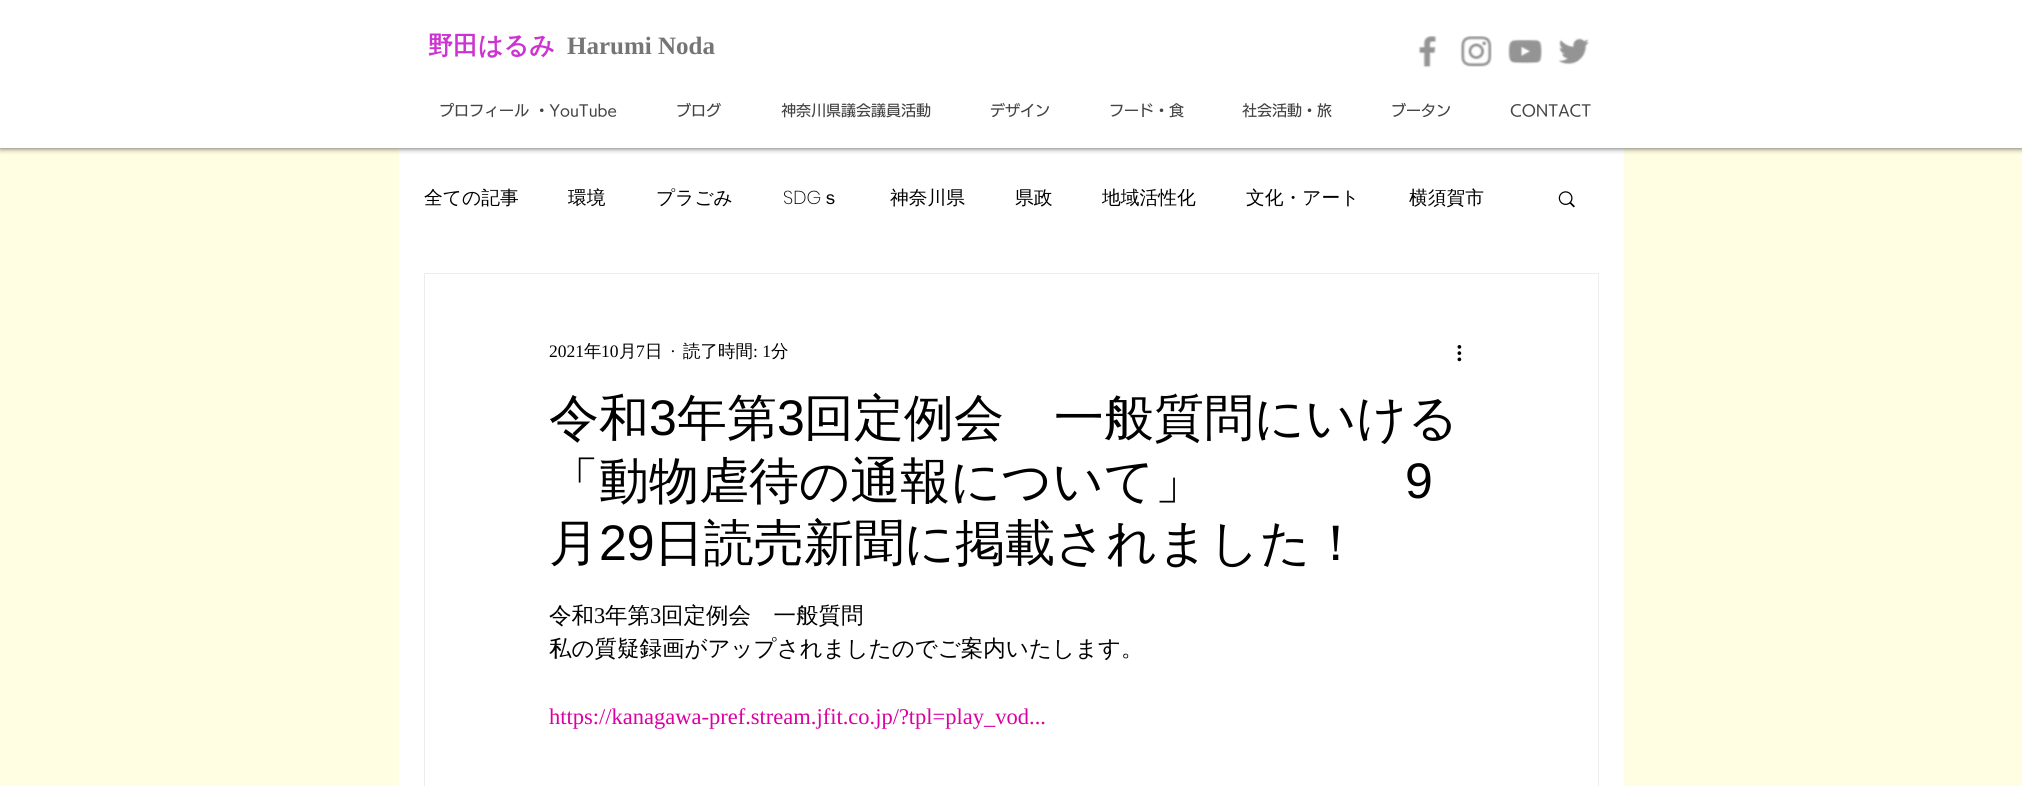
import math
import cairo

surface = cairo.ImageSurface(cairo.FORMAT_RGB24, 2022, 786)
ctx = cairo.Context(surface)
options = cairo.FontOptions()
options.set_hint_metrics(cairo.HINT_METRICS_OFF)
options.set_hint_style(cairo.HINT_STYLE_NONE)
ctx.set_font_options(options)
ctx.set_miter_limit(4)


def set_color(code):
    ctx.set_source_rgb(*(v / 255 for v in bytes.fromhex(code[-6:])))


def draw_text(x, y, s, family, size, color, bold=False, italic=False):
    ctx.select_font_face(family, cairo.FONT_SLANT_ITALIC if italic else cairo.FONT_SLANT_NORMAL, cairo.FONT_WEIGHT_BOLD if bold else cairo.FONT_WEIGHT_NORMAL)
    ctx.set_font_size(size)
    set_color(color)
    ctx.move_to(x, y)
    ctx.show_text(s)


def fill_rect(x, y, w, h, color):
    set_color(color)
    ctx.rectangle(x, y, w, h)
    ctx.fill()


def rounded_rect(x, y, w, h, r):
    ctx.new_sub_path()
    for i, (u, v) in enumerate([(x + w - r, y + h - r), (x + r, y + h - r), (x + r, y + r), (x + w - r, y + r)]):
        ctx.arc(u, v, r, i * math.pi / 2, (i + 1) * math.pi / 2)
    ctx.close_path()


def draw_shadow(x, y, w, h, r, blur, alpha):
    ctx.push_group_with_content(cairo.CONTENT_ALPHA)
    ctx.set_operator(cairo.OPERATOR_SOURCE)
    for i in range(15, -16, -2):
        e = blur * i / 6
        if min(w, h) + 2 * e > 0:
            ctx.set_source_rgba(0, 0, 0, alpha * math.erfc((i - 1) / 8.5) / 2)
            rounded_rect(x - e, y - e, w + 2 * e, h + 2 * e, max(0, min(r + e + blur * .6, min(w, h) / 2 + e)))
            ctx.fill()
    ctx.mask(ctx.pop_group())


def draw_image(path, x, y, w, h):
    ctx.save()
    ctx.set_source_surface(cairo.ImageSurface.create_from_png(path), x, y)
    ctx.rectangle(x, y, w, h)
    ctx.fill()
    ctx.restore()


set_color("#fffde2")
ctx.paint()
fill_rect(399, 148, 1225, 638, "#ffffff")
set_color("#000000")
draw_shadow(0, 0, 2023, 148, 0, 3, 0.7)
fill_rect(0, 0, 2022, 148, "#ffffff")
draw_text(428, 54, "野田はるみ", "WenQuanYi Zen Hei", 25, "#cc34d1", bold=True)
draw_text(567, 54, "Harumi Noda", "Liberation Serif", 25, "#757575", bold=True)
draw_image("assets/img1.png", 1418, 35, 19, 33)
draw_image("assets/img2.png", 1460, 35, 32, 32)
draw_image("assets/img3.png", 1508, 39, 35, 25)
draw_image("assets/img4.png", 1558, 38, 32, 27)
draw_text(439, 116, "プロフィール ・YouTube", "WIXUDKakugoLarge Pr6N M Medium", 15, "#444444")
draw_text(676, 116, "ブログ", "WIXUDKakugoLarge Pr6N M Medium", 15, "#444444")
draw_text(781, 116, "神奈川県議会議員活動", "WIXUDKakugoLarge Pr6N M Medium", 15, "#444444")
draw_text(990, 116, "デザイン", "WIXUDKakugoLarge Pr6N M Medium", 15, "#444444")
draw_text(1109, 116, "フード・食", "WIXUDKakugoLarge Pr6N M Medium", 15, "#444444")
draw_text(1242, 116, "社会活動・旅", "WIXUDKakugoLarge Pr6N M Medium", 15, "#444444")
draw_text(1391, 116, "ブータン", "WIXUDKakugoLarge Pr6N M Medium", 15, "#444444")
draw_text(1510, 116, "CONTACT", "WIXUDKakugoLarge Pr6N M Medium", 15, "#444444")
draw_text(424, 204, "全ての記事", "WenQuanYi Zen Hei Medium", 18.75, "#000000")
draw_text(568, 204, "環境", "WenQuanYi Zen Hei Medium", 18.75, "#000000")
draw_text(656, 204, "プラごみ", "WenQuanYi Zen Hei Medium", 18.75, "#000000")
draw_text(783, 204, "SDG", "Poppins ExtraLight", 18.75, "#000000")
draw_text(821, 204, "ｓ", "WenQuanYi Zen Hei Medium", 18.75, "#000000")
draw_text(890, 204, "神奈川県", "WenQuanYi Zen Hei Medium", 18.75, "#000000")
draw_text(1015, 204, "県政", "WenQuanYi Zen Hei Medium", 18.75, "#000000")
draw_text(1102, 204, "地域活性化", "WenQuanYi Zen Hei Medium", 18.75, "#000000")
draw_text(1246, 204, "文化・アート", "WenQuanYi Zen Hei Medium", 18.75, "#000000")
draw_text(1409, 204, "横須賀市", "WenQuanYi Zen Hei Medium", 18.75, "#000000")
draw_image("assets/img5.png", 1558, 191, 17, 17)
ctx.rectangle(424.5, 273.5, 1174, 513)
set_color("#eeecec")
ctx.set_line_width(1)
ctx.stroke()
draw_text(549, 357, "2021", "Liberation Serif", 17.5, "#000000")
draw_text(584, 357, "年", "WenQuanYi Zen Hei Medium", 17.5, "#000000")
draw_text(601, 357, "10", "Liberation Serif", 17.5, "#000000")
draw_text(619, 357, "月", "WenQuanYi Zen Hei Medium", 17.5, "#000000")
draw_text(636, 357, "7", "Liberation Serif", 17.5, "#000000")
draw_text(645, 357, "日", "WenQuanYi Zen Hei Medium", 17.5, "#000000")
draw_text(670, 357, "·", "Liberation Serif", 17.5, "#000000")
draw_text(683, 357, "読了時間", "WenQuanYi Zen Hei Medium", 17.5, "#000000")
draw_text(753, 357, ": 1", "Liberation Serif", 17.5, "#000000")
draw_text(771, 357, "分", "WenQuanYi Zen Hei Medium", 17.5, "#000000")
draw_image("assets/img6.png", 1457, 345, 5, 17)
draw_text(549, 435, "令和", "WenQuanYi Zen Hei Medium", 50, "#000000")
draw_text(649, 435, "3", "Liberation Sans", 50, "#000000")
draw_text(677, 435, "年第", "WenQuanYi Zen Hei Medium", 50, "#000000")
draw_text(777, 435, "3", "Liberation Sans", 50, "#000000")
draw_text(804, 435, "回定例会　一般質問にいける", "WenQuanYi Zen Hei Medium", 50, "#000000")
draw_text(549, 498, "「動物虐待の通報について」", "WenQuanYi Zen Hei Medium", 50, "#000000")
draw_text(1405, 498, "9", "Liberation Sans", 50, "#000000")
draw_text(549, 560, "月", "WenQuanYi Zen Hei Medium", 50, "#000000")
draw_text(599, 560, "29", "Liberation Sans", 50, "#000000")
draw_text(654, 560, "日読売新聞に掲載されました！", "WenQuanYi Zen Hei Medium", 50, "#000000")
draw_text(549, 623, "令和", "WenQuanYi Zen Hei Medium", 22.5, "#000000")
draw_text(594, 623, "3", "Liberation Serif", 22.5, "#000000")
draw_text(605, 623, "年第", "WenQuanYi Zen Hei Medium", 22.5, "#000000")
draw_text(650, 623, "3", "Liberation Serif", 22.5, "#000000")
draw_text(661, 623, "回定例会　一般質問", "WenQuanYi Zen Hei Medium", 22.5, "#000000")
draw_text(549, 656, "私の質疑録画がアップされましたのでご案内いたします。", "WenQuanYi Zen Hei Medium", 22.5, "#000000")
draw_text(549, 724, "https://kanagawa-pref.stream.jfit.co.jp/?tpl=play_vod...", "Liberation Serif", 22.5, "#db00a1")
surface.write_to_png("output.png")
